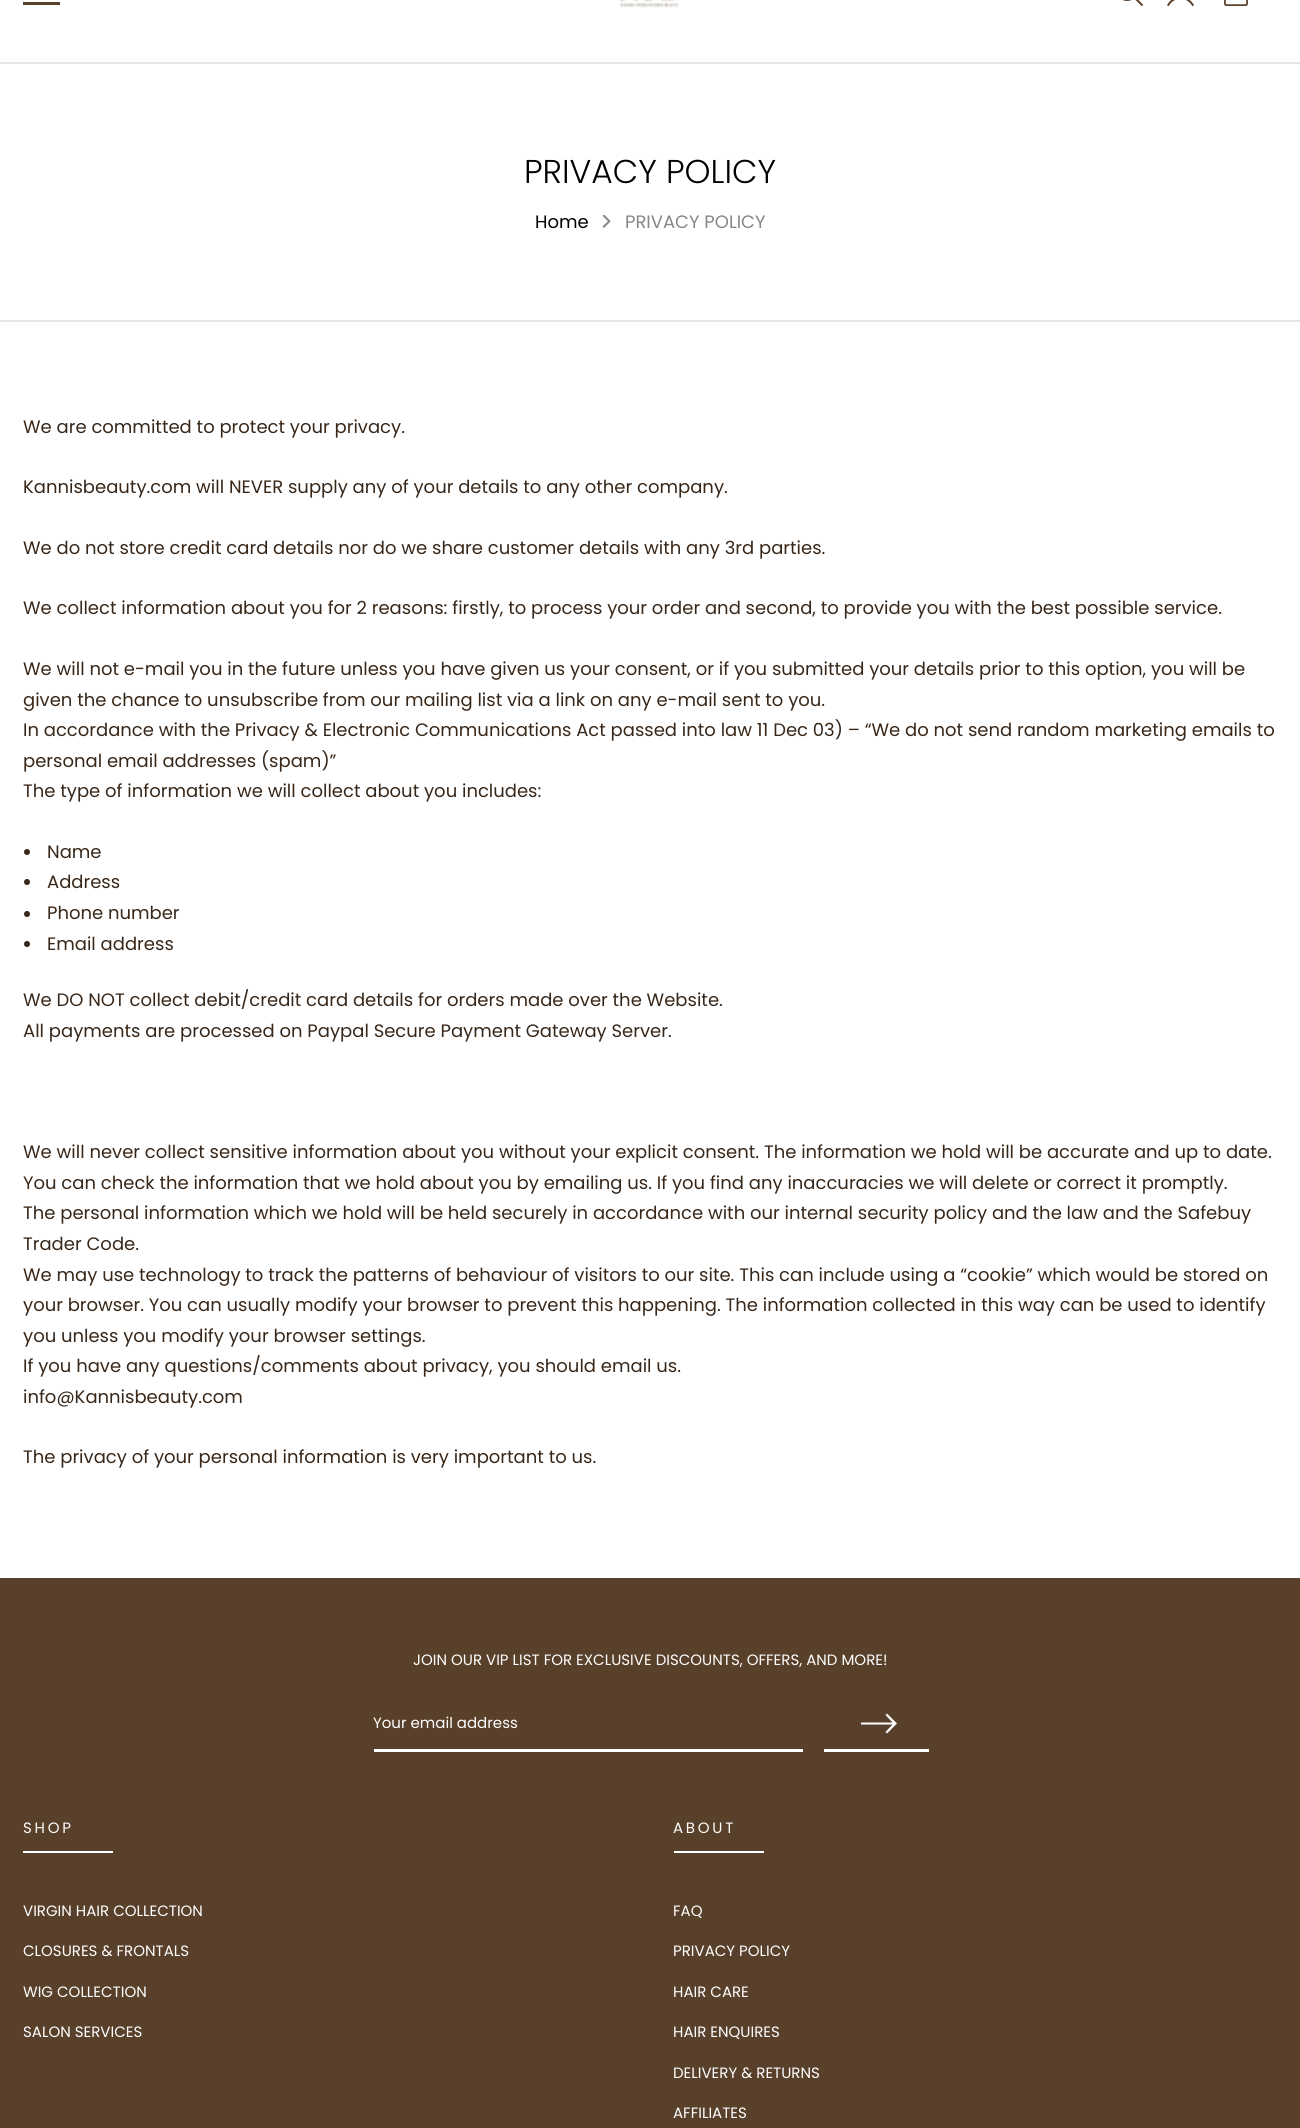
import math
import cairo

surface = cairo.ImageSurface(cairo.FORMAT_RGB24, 1300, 2128)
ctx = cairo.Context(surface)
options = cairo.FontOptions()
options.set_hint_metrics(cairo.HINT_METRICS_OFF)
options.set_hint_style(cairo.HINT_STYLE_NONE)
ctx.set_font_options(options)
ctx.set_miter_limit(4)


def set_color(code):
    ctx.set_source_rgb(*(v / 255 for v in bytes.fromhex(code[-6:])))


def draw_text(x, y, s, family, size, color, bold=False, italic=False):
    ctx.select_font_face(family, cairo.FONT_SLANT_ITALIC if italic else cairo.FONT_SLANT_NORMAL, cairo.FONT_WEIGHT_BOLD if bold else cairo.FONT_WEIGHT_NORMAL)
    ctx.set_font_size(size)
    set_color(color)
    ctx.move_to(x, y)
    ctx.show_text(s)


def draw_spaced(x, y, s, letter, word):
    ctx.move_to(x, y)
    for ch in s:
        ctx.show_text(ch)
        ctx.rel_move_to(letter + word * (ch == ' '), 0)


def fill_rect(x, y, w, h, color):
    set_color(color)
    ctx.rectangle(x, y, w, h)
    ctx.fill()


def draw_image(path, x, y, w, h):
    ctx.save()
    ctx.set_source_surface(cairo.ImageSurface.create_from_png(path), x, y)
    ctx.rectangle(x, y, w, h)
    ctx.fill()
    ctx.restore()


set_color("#ffffff")
ctx.paint()
fill_rect(23, 2, 37, 3, "#59402b")
draw_image("assets/img1.png", 619, 0, 60, 8)
draw_image("assets/img2.png", 1122, 0, 21, 6)
draw_image("assets/img3.png", 1167, 0, 27, 6)
draw_image("assets/img4.png", 1224, 0, 24, 6)
fill_rect(0, 62, 1300, 2, "#e6e6e6")
fill_rect(0, 320, 1300, 2, "#e6e6e6")
draw_text(524, 183, "PRIVACY POLICY", "Poppins Light", 33, "#000000")
draw_text(535, 228, "Home", "Poppins", 18, "#000000")
draw_image("assets/img5.png", 602, 215, 9, 13)
draw_text(625, 228, "PRIVACY POLICY", "Poppins", 18, "#868686")
draw_text(23, 433, "We are committed to protect your privacy.", "Poppins", 18, "#382719")
draw_text(23, 493, "Kannisbeauty.com will NEVER supply any of your details to any other company.", "Poppins", 18, "#382719")
draw_text(23, 554, "We do not store credit card details nor do we share customer details with any 3rd parties.", "Poppins", 18, "#382719")
draw_text(23, 614, "We collect information about you for 2 reasons: firstly, to process your order and second, to provide you with the best possible service.", "Poppins", 18, "#382719")
draw_text(23, 675, "We will not e-mail you in the future unless you have given us your consent, or if you submitted your details prior to this option, you will be", "Poppins", 18, "#382719")
draw_text(23, 706, "given the chance to unsubscribe from our mailing list via a link on any e-mail sent to you.", "Poppins", 18, "#382719")
draw_text(23, 736, "In accordance with the Privacy & Electronic Communications Act passed into law 11 Dec 03) – “We do not send random marketing emails to", "Poppins", 18, "#382719")
draw_text(23, 767, "personal email addresses (spam)”", "Poppins", 18, "#382719")
draw_text(23, 797, "The type of information we will collect about you includes:", "Poppins", 18, "#382719")
ctx.new_path()
ctx.arc(27, 852, 3, 0, 2 * math.pi)
ctx.fill()
draw_text(47, 858, "Name", "Poppins", 18, "#382719")
ctx.new_path()
ctx.arc(27, 882, 3, 0, 2 * math.pi)
ctx.fill()
draw_text(47, 888, "Address", "Poppins", 18, "#382719")
ctx.new_path()
ctx.arc(27, 914, 3, 0, 2 * math.pi)
ctx.fill()
draw_text(47, 919, "Phone number", "Poppins", 18, "#382719")
ctx.new_path()
ctx.arc(27, 944, 3, 0, 2 * math.pi)
ctx.fill()
draw_text(47, 950, "Email address", "Poppins", 18, "#382719")
draw_text(23, 1006, "We DO NOT collect debit/credit card details for orders made over the Website.", "Poppins", 18, "#382719")
draw_text(23, 1037, "All payments are processed on Paypal Secure Payment Gateway Server.", "Poppins", 18, "#382719")
draw_text(23, 1158, "We will never collect sensitive information about you without your explicit consent. The information we hold will be accurate and up to date.", "Poppins", 18, "#382719")
draw_text(23, 1189, "You can check the information that we hold about you by emailing us. If you find any inaccuracies we will delete or correct it promptly.", "Poppins", 18, "#382719")
draw_text(23, 1219, "The personal information which we hold will be held securely in accordance with our internal security policy and the law and the Safebuy", "Poppins", 18, "#382719")
draw_text(23, 1250, "Trader Code.", "Poppins", 18, "#382719")
draw_text(23, 1281, "We may use technology to track the patterns of behaviour of visitors to our site. This can include using a “cookie” which would be stored on", "Poppins", 18, "#382719")
draw_text(23, 1311, "your browser. You can usually modify your browser to prevent this happening. The information collected in this way can be used to identify", "Poppins", 18, "#382719")
draw_text(23, 1342, "you unless you modify your browser settings.", "Poppins", 18, "#382719")
draw_text(23, 1372, "If you have any questions/comments about privacy, you should email us.", "Poppins", 18, "#382719")
draw_text(23, 1403, "info@Kannisbeauty.com", "Poppins", 18, "#382719")
draw_text(23, 1463, "The privacy of your personal information is very important to us.", "Poppins", 18, "#382719")
fill_rect(0, 1578, 1300, 550, "#59402b")
draw_text(413, 1665, "JOIN OUR VIP LIST FOR EXCLUSIVE DISCOUNTS, OFFERS, AND MORE!", "Poppins", 15, "#ffffff")
fill_rect(374, 1749, 429, 3, "#ffffff")
draw_text(373, 1728, "Your email address", "Poppins", 15, "#ffffff")
fill_rect(824, 1749, 105, 3, "#ffffff")
ctx.new_path()
ctx.move_to(887, 1713.5)
ctx.line_to(885.5, 1715)
ctx.line_to(892.5, 1722.5)
ctx.line_to(861, 1722.5)
ctx.line_to(861, 1724.5)
ctx.line_to(892.5, 1724.5)
ctx.line_to(885.5, 1732)
ctx.line_to(887, 1733.5)
ctx.line_to(897, 1723.5)
ctx.close_path()
ctx.fill()
draw_spaced(23, 1833, "SHOP", 2.75, 0)
fill_rect(23, 1851, 90, 2, "#ffffff")
draw_text(23, 1916, "VIRGIN HAIR COLLECTION", "Poppins", 15, "#ffffff")
draw_text(23, 1956, "CLOSURES & FRONTALS", "Poppins", 15, "#ffffff")
draw_text(23, 1997, "WIG COLLECTION", "Poppins", 15, "#ffffff")
draw_text(23, 2037, "SALON SERVICES", "Poppins", 15, "#ffffff")
draw_spaced(673, 1833, "ABOUT", 2.75, 0)
fill_rect(674, 1851, 90, 2, "#ffffff")
draw_text(673, 1916, "FAQ", "Poppins", 15, "#ffffff")
draw_text(673, 1956, "PRIVACY POLICY", "Poppins", 15, "#ffffff")
draw_text(673, 1997, "HAIR CARE", "Poppins", 15, "#ffffff")
draw_text(673, 2037, "HAIR ENQUIRES", "Poppins", 15, "#ffffff")
draw_text(673, 2078, "DELIVERY & RETURNS", "Poppins", 15, "#ffffff")
draw_text(673, 2118, "AFFILIATES", "Poppins", 15, "#ffffff")
surface.write_to_png("output.png")
